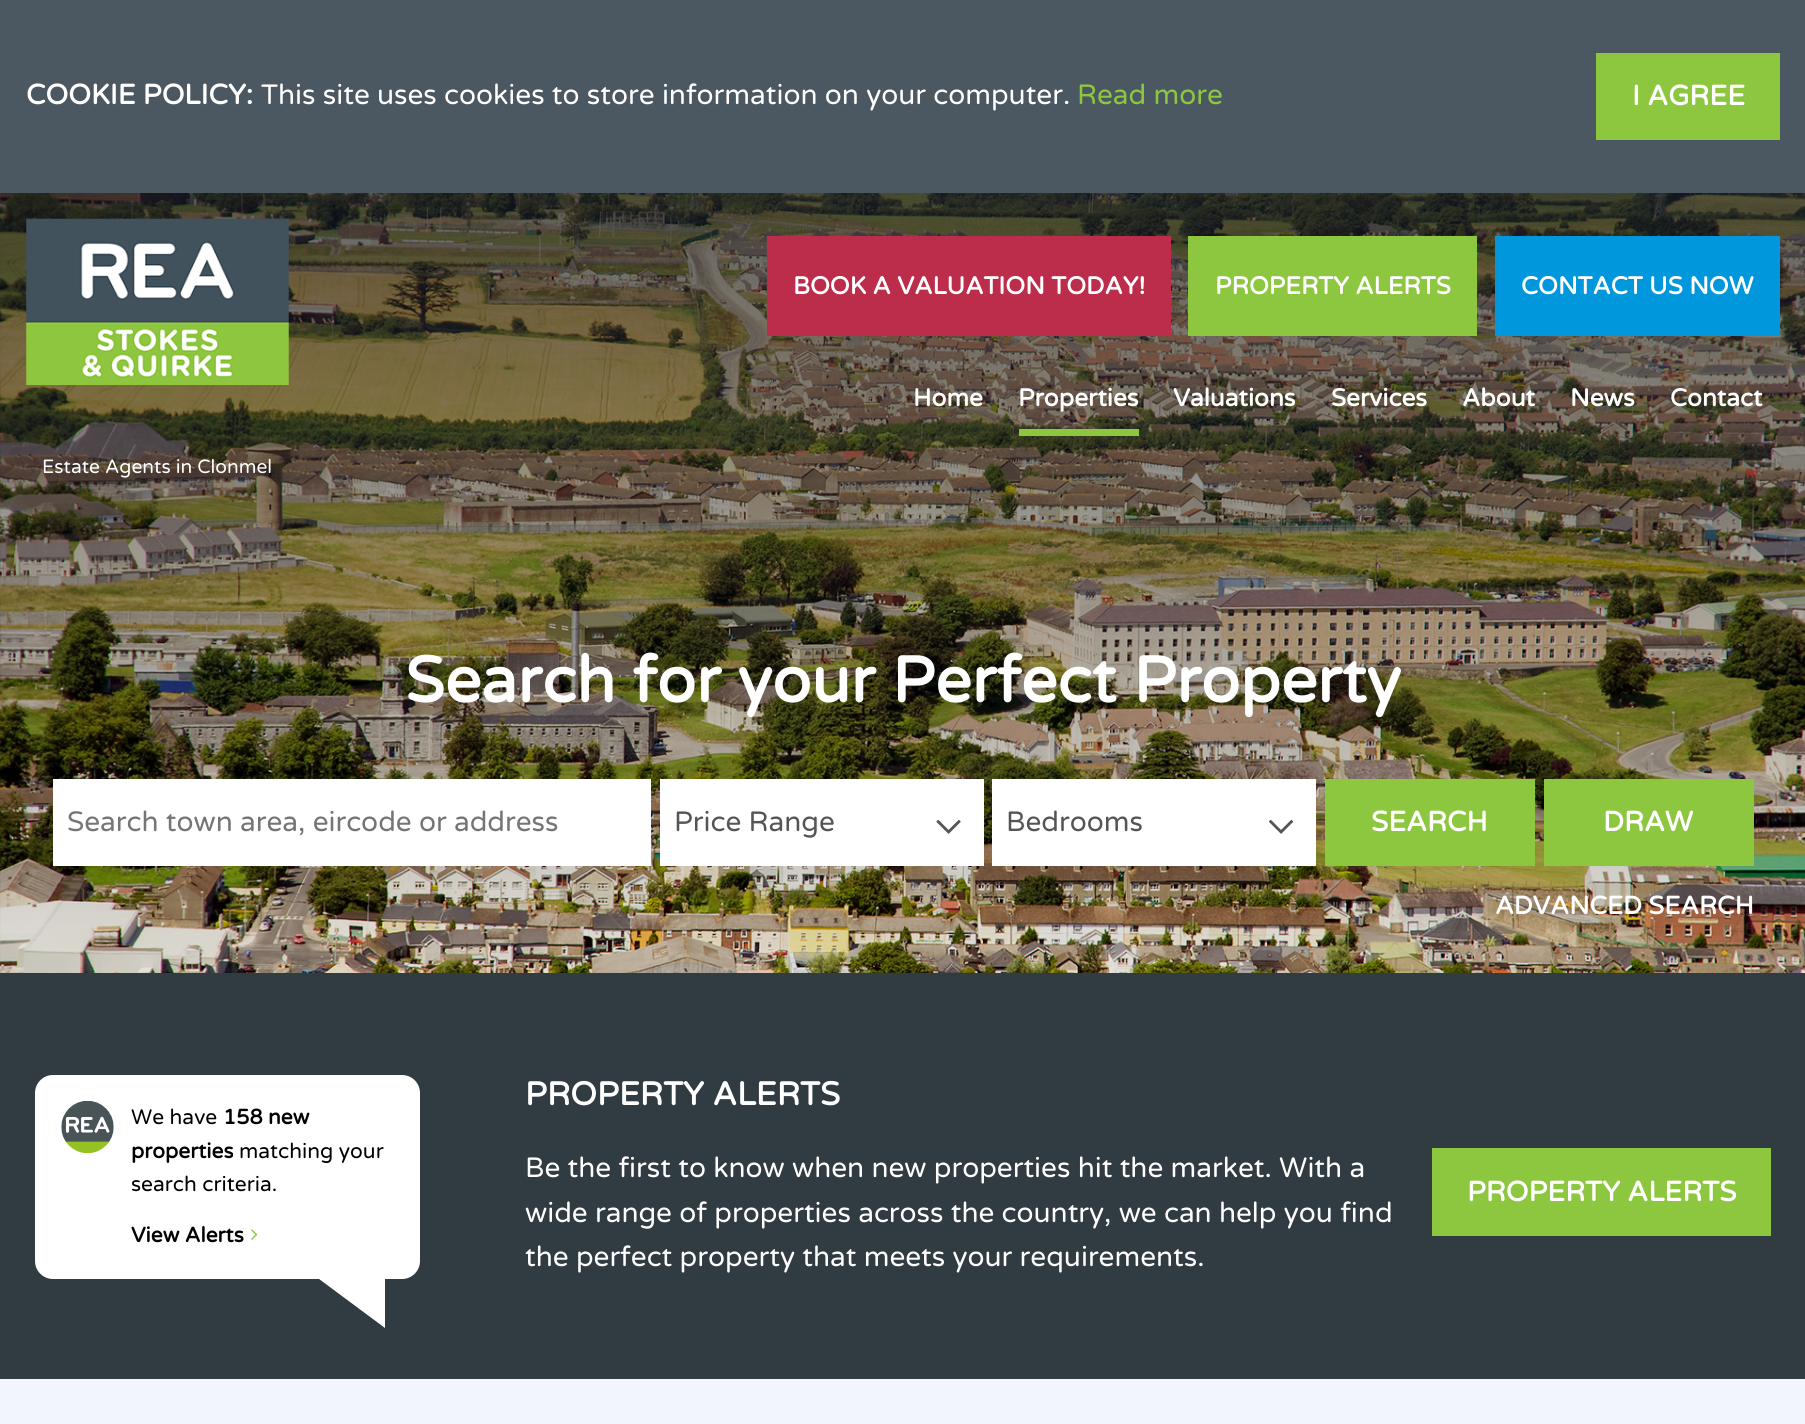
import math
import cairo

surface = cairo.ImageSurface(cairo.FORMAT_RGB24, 1805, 1424)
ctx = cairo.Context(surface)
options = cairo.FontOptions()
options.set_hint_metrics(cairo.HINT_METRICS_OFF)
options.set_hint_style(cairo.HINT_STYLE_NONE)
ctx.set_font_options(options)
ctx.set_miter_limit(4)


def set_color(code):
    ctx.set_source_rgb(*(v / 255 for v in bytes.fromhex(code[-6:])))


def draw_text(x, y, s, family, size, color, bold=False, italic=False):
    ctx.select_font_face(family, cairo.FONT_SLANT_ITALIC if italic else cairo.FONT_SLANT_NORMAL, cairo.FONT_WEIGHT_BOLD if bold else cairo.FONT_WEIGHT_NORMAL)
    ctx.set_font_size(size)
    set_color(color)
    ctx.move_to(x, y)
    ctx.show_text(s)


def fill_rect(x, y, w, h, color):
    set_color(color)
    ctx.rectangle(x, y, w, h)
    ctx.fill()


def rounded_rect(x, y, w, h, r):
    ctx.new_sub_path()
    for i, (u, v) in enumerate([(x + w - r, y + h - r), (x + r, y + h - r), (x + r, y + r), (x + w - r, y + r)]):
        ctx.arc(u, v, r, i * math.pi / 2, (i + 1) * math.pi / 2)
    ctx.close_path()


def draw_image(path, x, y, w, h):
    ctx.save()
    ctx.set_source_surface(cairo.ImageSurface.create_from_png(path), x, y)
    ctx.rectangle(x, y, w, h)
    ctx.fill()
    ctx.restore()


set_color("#ffffff")
ctx.paint()
fill_rect(0, 0, 1805, 193, "#4b5862")
draw_text(26, 104, "COOKIE POLICY:", "Varela Round", 28, "#ffffff", bold=True)
draw_text(261, 104, "This site uses cookies to store information on your computer.", "Varela Round", 28, "#ffffff")
draw_text(1077, 104, "Read more", "Varela Round", 28, "#8dc73f")
fill_rect(1596, 53, 184, 87, "#8dc73f")
draw_text(1632, 105, "I AGREE", "Varela Round", 28, "#ffffff", bold=True)
draw_image("assets/img2.png", 0, 193, 1805, 780)
draw_image("assets/img1.png", 26, 218, 263, 167)
fill_rect(767, 236, 404, 100, "#bc2d4b")
draw_text(793, 294, "BOOK A VALUATION TODAY!", "Varela Round", 24.5, "#ffffff", bold=True)
fill_rect(1188, 236, 289, 100, "#8dc73f")
draw_text(1215, 294, "PROPERTY ALERTS", "Varela Round", 24.5, "#ffffff", bold=True)
fill_rect(1495, 236, 285, 100, "#0097dc")
draw_text(1521, 294, "CONTACT US NOW", "Varela Round", 24.5, "#ffffff", bold=True)
draw_text(913, 406, "Home", "Varela Round", 24.5, "#ffffff", bold=True)
fill_rect(1019, 429, 120, 7, "#8dc73f")
draw_text(1018, 406, "Properties", "Varela Round", 24.5, "#ffffff", bold=True)
draw_text(1173, 406, "Valuations", "Varela Round", 24.5, "#ffffff", bold=True)
draw_text(1331, 406, "Services", "Varela Round", 24.5, "#ffffff", bold=True)
draw_text(1462, 406, "About", "Varela Round", 24.5, "#ffffff", bold=True)
draw_text(1570, 406, "News", "Varela Round", 24.5, "#ffffff", bold=True)
draw_text(1670, 406, "Contact", "Varela Round", 24.5, "#ffffff", bold=True)
draw_text(42, 473, "Estate Agents in Clonmel", "Varela Round", 19.25, "#ffffff")
draw_text(405, 702, "Search for your Perfect Property", "Varela Round", 64.4, "#ffffff", bold=True)
fill_rect(53, 779, 598, 87, "#ffffff")
draw_text(67, 831, "Search town area, eircode or address", "Varela Round", 28, "#757575")
fill_rect(660, 779, 324, 87, "#ffffff")
draw_text(674, 831, "Price Range", "Varela Round", 28, "#555555")
draw_image("assets/img3.png", 936, 819, 25, 15)
fill_rect(992, 779, 324, 87, "#ffffff")
draw_text(1006, 831, "Bedrooms", "Varela Round", 28, "#555555")
draw_image("assets/img4.png", 1269, 819, 25, 15)
fill_rect(1325, 779, 210, 87, "#8dc73f")
draw_text(1371, 831, "SEARCH", "Varela Round", 28, "#ffffff", bold=True)
fill_rect(1544, 779, 210, 87, "#8dc73f")
draw_text(1603, 831, "DRAW", "Varela Round", 28, "#ffffff", bold=True)
draw_text(1495, 914, "ADVANCED SEARCH", "Varela Round", 25.25, "#ffffff", bold=True)
fill_rect(0, 973, 1805, 406, "#313b42")
set_color("#ffffff")
rounded_rect(35, 1075, 385, 204, 18)
ctx.fill()
draw_image("assets/img5.png", 61, 1101, 53, 52)
draw_text(131, 1124, "We have", "Varela Round", 21, "#000000")
draw_text(223, 1124, "158 new", "Varela Round", 21, "#000000", bold=True)
draw_text(131, 1158, "properties", "Varela Round", 21, "#000000", bold=True)
draw_text(239, 1158, "matching your", "Varela Round", 21, "#000000")
draw_text(131, 1191, "search criteria.", "Varela Round", 21, "#000000")
draw_text(131, 1242, "View Alerts", "Varela Round", 21, "#000000", bold=True)
draw_image("assets/img6.png", 251, 1229, 7, 11)
set_color("#ffffff")
ctx.new_path()
ctx.move_to(385, 1276)
ctx.line_to(385, 1328)
ctx.line_to(315, 1276)
ctx.close_path()
ctx.fill()
draw_text(525, 1105, "PROPERTY ALERTS", "Varela Round", 32.75, "#ffffff", bold=True)
draw_text(525, 1177, "Be the first to know when new properties hit the market. With a", "Varela Round", 28, "#ffffff")
draw_text(525, 1222, "wide range of properties across the country, we can help you find", "Varela Round", 28, "#ffffff")
draw_text(525, 1266, "the perfect property that meets your requirements.", "Varela Round", 28, "#ffffff")
fill_rect(1432, 1148, 339, 88, "#8dc73f")
draw_text(1467, 1201, "PROPERTY ALERTS", "Varela Round", 28, "#ffffff", bold=True)
fill_rect(0, 1379, 1805, 45, "#f2f6fc")
surface.write_to_png("output.png")
